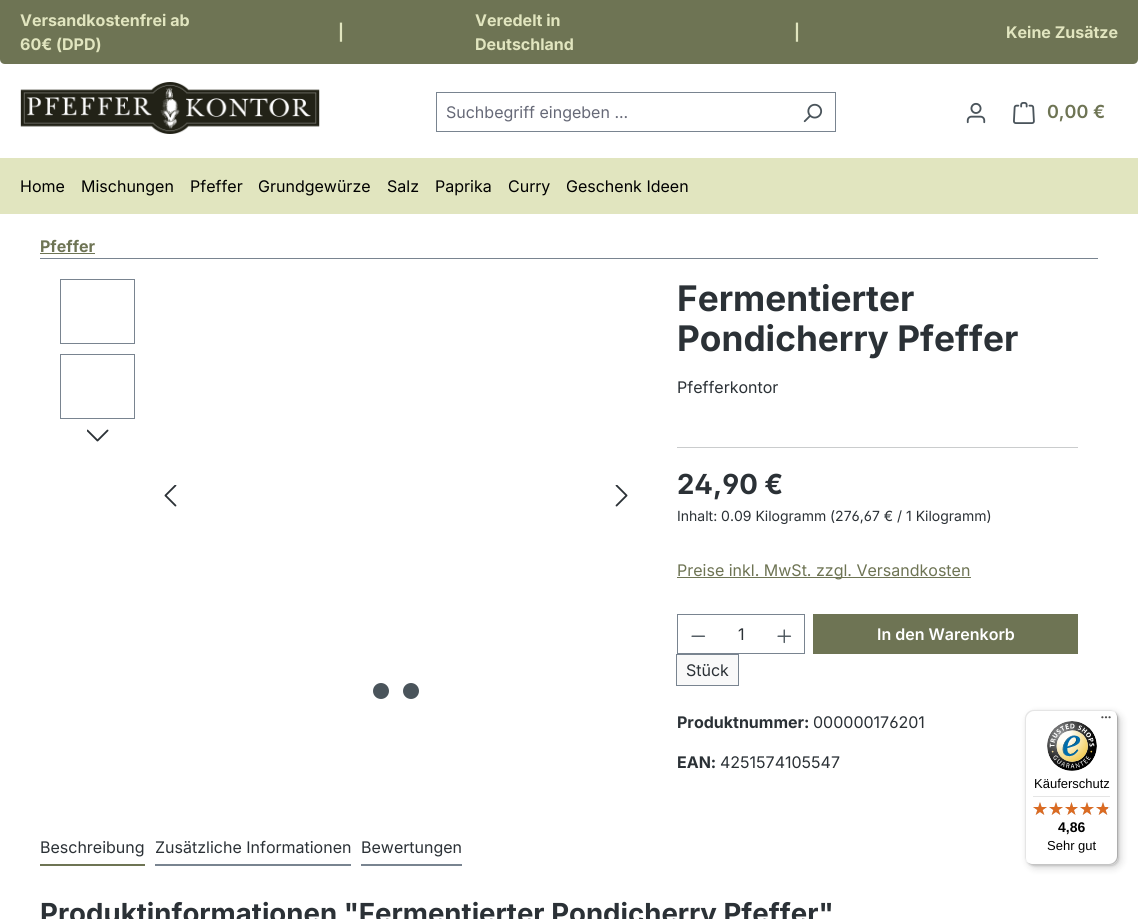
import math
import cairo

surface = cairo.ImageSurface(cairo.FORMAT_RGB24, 1138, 919)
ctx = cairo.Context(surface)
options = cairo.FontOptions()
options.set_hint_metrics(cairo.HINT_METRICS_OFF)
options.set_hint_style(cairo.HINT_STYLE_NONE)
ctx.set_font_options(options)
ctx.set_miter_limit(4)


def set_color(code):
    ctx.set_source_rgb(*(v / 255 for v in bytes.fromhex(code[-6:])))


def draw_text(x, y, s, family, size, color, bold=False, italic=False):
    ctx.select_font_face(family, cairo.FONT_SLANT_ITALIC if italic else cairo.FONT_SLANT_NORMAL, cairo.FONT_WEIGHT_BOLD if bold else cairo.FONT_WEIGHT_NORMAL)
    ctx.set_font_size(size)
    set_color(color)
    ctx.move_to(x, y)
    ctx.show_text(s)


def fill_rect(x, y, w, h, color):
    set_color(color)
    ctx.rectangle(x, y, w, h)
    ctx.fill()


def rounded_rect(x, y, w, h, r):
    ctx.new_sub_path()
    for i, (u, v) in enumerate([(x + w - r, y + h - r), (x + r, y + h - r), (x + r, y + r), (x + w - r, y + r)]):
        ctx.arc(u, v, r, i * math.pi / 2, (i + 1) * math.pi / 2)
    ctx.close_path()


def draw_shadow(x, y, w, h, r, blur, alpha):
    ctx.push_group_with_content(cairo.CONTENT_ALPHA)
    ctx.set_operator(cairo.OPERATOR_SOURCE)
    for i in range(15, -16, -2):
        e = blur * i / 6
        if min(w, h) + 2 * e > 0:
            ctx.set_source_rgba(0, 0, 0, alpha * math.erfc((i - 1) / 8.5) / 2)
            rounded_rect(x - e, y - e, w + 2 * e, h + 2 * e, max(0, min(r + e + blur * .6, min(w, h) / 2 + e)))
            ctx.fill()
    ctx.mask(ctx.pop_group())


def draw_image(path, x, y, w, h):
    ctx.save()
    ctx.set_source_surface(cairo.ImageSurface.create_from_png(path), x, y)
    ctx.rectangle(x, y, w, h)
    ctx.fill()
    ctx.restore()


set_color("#ffffff")
ctx.paint()
set_color("#6e7454")
ctx.new_path()
ctx.move_to(0, 0)
ctx.line_to(1138, 0)
ctx.line_to(1138, 59)
ctx.curve_to(1138, 62, 1136, 64, 1133, 64)
ctx.line_to(5, 64)
ctx.curve_to(2, 64, 0, 62, 0, 59)
ctx.close_path()
ctx.fill()
draw_text(20, 26, "Versandkostenfrei ab", "Inter", 16, "#e1e5bf", bold=True)
draw_text(20, 50, "60€ (DPD)", "Inter", 16, "#e1e5bf", bold=True)
draw_text(338, 38, "|", "Inter", 16, "#e1e5bf", bold=True)
draw_text(475, 26, "Veredelt in", "Inter", 16, "#e1e5bf", bold=True)
draw_text(475, 50, "Deutschland", "Inter", 16, "#e1e5bf", bold=True)
draw_text(794, 38, "|", "Inter", 16, "#e1e5bf", bold=True)
draw_text(1006, 38, "Keine Zusätze", "Inter", 16, "#e1e5bf", bold=True)
draw_image("assets/img1.png", 20, 82, 300, 52)
fill_rect(436, 92, 400, 1, "#798490")
fill_rect(436, 131, 354, 1, "#798490")
fill_rect(436, 92, 1, 40, "#798490")
draw_text(446, 118, "Suchbegriff eingeben ...", "Inter", 16, "#666977")
fill_rect(835, 92, 1, 40, "#798490")
fill_rect(789, 131, 47, 1, "#798490")
draw_image("assets/img2.png", 803, 103, 20, 20)
draw_image("assets/img3.png", 966, 102, 20, 22)
draw_image("assets/img4.png", 1013, 102, 22, 22)
draw_text(1047, 118, "0,00 €", "Inter SemiBold", 18, "#6e7454")
fill_rect(0, 158, 1138, 56, "#e1e5bf")
draw_text(20, 192, "Home", "Inter", 16, "#000000")
draw_text(81, 192, "Mischungen", "Inter", 16, "#000000")
draw_text(190, 192, "Pfeffer", "Inter", 16, "#000000")
draw_text(258, 192, "Grundgewürze", "Inter", 16, "#000000")
draw_text(387, 192, "Salz", "Inter", 16, "#000000")
draw_text(435, 192, "Paprika", "Inter", 16, "#000000")
draw_text(508, 192, "Curry", "Inter", 16, "#000000")
draw_text(566, 192, "Geschenk Ideen", "Inter", 16, "#000000")
fill_rect(40, 258, 1058, 1, "#798490")
draw_text(40, 252, "Pfeffer", "Inter", 16, "#6e7454", bold=True)
fill_rect(40, 253, 55, 1, "#6e7454")
ctx.rectangle(60.5, 279.5, 74, 64)
set_color("#798490")
ctx.set_line_width(1)
ctx.stroke()
ctx.rectangle(60.5, 354.5, 74, 64)
ctx.stroke()
draw_image("assets/img5.png", 87, 429, 22, 13)
draw_image("assets/img6.png", 164, 485, 13, 22)
draw_image("assets/img7.png", 615, 485, 13, 22)
set_color("#4a545b")
ctx.arc(381, 691, 8, 0, 2 * math.pi)
ctx.fill()
ctx.arc(411, 691, 8, 0, 2 * math.pi)
ctx.fill()
draw_text(677, 311, "Fermentierter", "Inter", 35.25, "#2b3136", bold=True)
draw_text(677, 351, "Pondicherry Pfeffer", "Inter", 35.25, "#2b3136", bold=True)
draw_text(677, 393, "Pfefferkontor", "Inter", 16, "#2b3136")
fill_rect(677, 447, 401, 1, "#cacccd")
draw_text(677, 494, "24,90 €", "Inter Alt", 27.6, "#2b3136", bold=True)
draw_text(677, 521, "Inhalt: 0.09 Kilogramm", "Inter", 14, "#2b3136")
draw_text(830, 521, "(276,67 € / 1 Kilogramm)", "Inter Alt", 14, "#2b3136")
fill_rect(677, 577, 294, 1, "#6e7454")
draw_text(677, 576, "Preise inkl. MwSt. zzgl. Versandkosten", "Inter", 16, "#6e7454")
fill_rect(677, 614, 128, 1, "#798490")
fill_rect(677, 653, 88, 1, "#798490")
fill_rect(677, 614, 1, 40, "#798490")
draw_image("assets/img8.png", 691, 635, 15, 2)
draw_text(738, 640, "1", "Inter", 16, "#2b3136")
fill_rect(804, 614, 1, 40, "#798490")
fill_rect(764, 653, 41, 1, "#798490")
draw_image("assets/img9.png", 777, 629, 15, 15)
set_color("#f9f9f9")
ctx.rectangle(676.5, 654.5, 62, 31)
ctx.fill_preserve()
set_color("#798490")
ctx.stroke()
draw_text(686, 676, "Stück", "Inter", 16, "#2b3136")
fill_rect(813, 614, 265, 40, "#6e7454")
draw_text(877, 640, "In den Warenkorb", "Inter SemiBold", 16, "#ffffff")
draw_text(677, 728, "Produktnummer:", "Inter", 16, "#2b3136", bold=True)
draw_text(813, 728, "000000176201", "Inter Alt", 16, "#2b3136")
draw_text(677, 768, "EAN:", "Inter", 16, "#2b3136", bold=True)
draw_text(720, 768, "4251574105547", "Inter", 16, "#2b3136")
fill_rect(40, 864, 105, 2, "#6e7454")
draw_text(40, 853, "Beschreibung", "Inter", 16, "#2b3136")
fill_rect(155, 864, 196, 2, "#798490")
draw_text(155, 853, "Zusätzliche Informationen", "Inter", 16, "#2b3136")
fill_rect(361, 864, 101, 2, "#798490")
draw_text(361, 853, "Bewertungen", "Inter", 16, "#2b3136")
draw_text(40, 923, "Produktinformationen \"Fermentierter Pondicherry Pfeffer\"", "Inter", 27.6, "#2b3136", bold=True)
set_color("#000000")
draw_shadow(1028, 713, 93, 155, 8, 4, 0.15)
draw_shadow(1026, 711, 93, 155, 8, 1, 0.15)
set_color("#ffffff")
rounded_rect(1025, 710, 93, 155, 8)
ctx.fill()
set_color("#e5e5e5")
ctx.new_path()
ctx.move_to(1034, 711)
ctx.line_to(1111, 711)
ctx.curve_to(1113, 711, 1115, 712, 1117, 714)
ctx.curve_to(1115, 712, 1113, 710, 1110, 710)
ctx.line_to(1033, 710)
ctx.curve_to(1029, 710, 1025, 714, 1025, 718)
ctx.line_to(1025, 857)
ctx.curve_to(1025, 860, 1027, 862, 1029, 864)
ctx.curve_to(1027, 862, 1026, 860, 1026, 858)
ctx.line_to(1026, 719)
ctx.curve_to(1026, 715, 1030, 711, 1034, 711)
ctx.close_path()
ctx.fill()
set_color("#cccccc")
ctx.new_path()
ctx.move_to(1026, 861)
ctx.curve_to(1028, 863, 1030, 865, 1033, 865)
ctx.line_to(1110, 865)
ctx.curve_to(1114, 865, 1118, 861, 1118, 857)
ctx.line_to(1118, 718)
ctx.curve_to(1118, 715, 1116, 713, 1114, 711)
ctx.curve_to(1116, 713, 1117, 715, 1117, 717)
ctx.line_to(1117, 856)
ctx.curve_to(1117, 860, 1113, 864, 1109, 864)
ctx.line_to(1032, 864)
ctx.curve_to(1030, 864, 1028, 863, 1026, 861)
ctx.close_path()
ctx.fill()
ctx.set_source_rgba(0.196, 0.196, 0.196, 0.2)
ctx.new_path()
ctx.move_to(1027, 862)
ctx.curve_to(1028, 864, 1031, 865, 1033, 865)
ctx.line_to(1110, 865)
ctx.curve_to(1114, 865, 1118, 861, 1118, 857)
ctx.line_to(1118, 718)
ctx.curve_to(1118, 716, 1117, 713, 1115, 712)
ctx.curve_to(1116, 713, 1117, 715, 1117, 717)
ctx.line_to(1117, 856)
ctx.curve_to(1117, 861, 1114, 864, 1109, 864)
ctx.line_to(1032, 864)
ctx.curve_to(1030, 864, 1028, 863, 1027, 862)
ctx.close_path()
ctx.fill()
draw_image("assets/img10.png", 1101, 716, 10, 3)
ctx.set_source_rgba(1, 1, 1, 0.3)
ctx.new_path()
ctx.move_to(1027, 862)
ctx.curve_to(1028, 864, 1031, 865, 1033, 865)
ctx.line_to(1110, 865)
ctx.curve_to(1114, 865, 1118, 861, 1118, 857)
ctx.line_to(1118, 856)
ctx.curve_to(1118, 861, 1114, 864, 1110, 864)
ctx.line_to(1032, 864)
ctx.curve_to(1030, 864, 1028, 863, 1027, 862)
ctx.close_path()
ctx.fill()
draw_image("assets/img11.png", 1047, 721, 50, 50)
draw_text(1034, 788, "Käuferschutz", "Liberation Sans", 13, "#000000")
fill_rect(1033, 796, 77, 1, "#e5e5e5")
draw_image("assets/img12.png", 1033, 802, 14, 13)
draw_image("assets/img12.png", 1049, 802, 14, 13)
draw_image("assets/img13.png", 1065, 802, 13, 13)
draw_image("assets/img12.png", 1080, 802, 14, 13)
draw_image("assets/img12.png", 1096, 802, 14, 13)
draw_image("assets/img14.png", 1033, 802, 14, 13)
draw_image("assets/img14.png", 1049, 802, 14, 13)
draw_image("assets/img15.png", 1065, 802, 13, 13)
draw_image("assets/img14.png", 1080, 802, 14, 13)
draw_image("assets/img16.png", 1096, 802, 12, 13)
draw_text(1058, 832, "4,86", "Liberation Sans", 14, "#000000", bold=True)
draw_text(1047, 850, "Sehr gut", "Liberation Sans", 13, "#000000")
surface.write_to_png("output.png")
